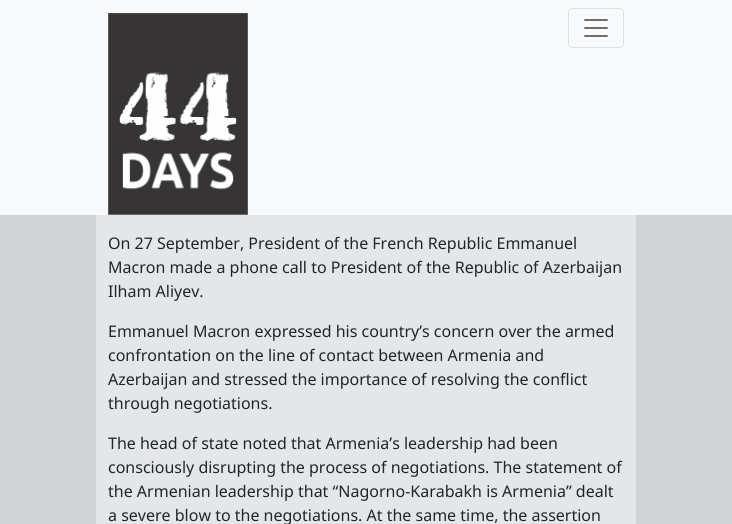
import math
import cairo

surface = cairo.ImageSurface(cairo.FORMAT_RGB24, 732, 524)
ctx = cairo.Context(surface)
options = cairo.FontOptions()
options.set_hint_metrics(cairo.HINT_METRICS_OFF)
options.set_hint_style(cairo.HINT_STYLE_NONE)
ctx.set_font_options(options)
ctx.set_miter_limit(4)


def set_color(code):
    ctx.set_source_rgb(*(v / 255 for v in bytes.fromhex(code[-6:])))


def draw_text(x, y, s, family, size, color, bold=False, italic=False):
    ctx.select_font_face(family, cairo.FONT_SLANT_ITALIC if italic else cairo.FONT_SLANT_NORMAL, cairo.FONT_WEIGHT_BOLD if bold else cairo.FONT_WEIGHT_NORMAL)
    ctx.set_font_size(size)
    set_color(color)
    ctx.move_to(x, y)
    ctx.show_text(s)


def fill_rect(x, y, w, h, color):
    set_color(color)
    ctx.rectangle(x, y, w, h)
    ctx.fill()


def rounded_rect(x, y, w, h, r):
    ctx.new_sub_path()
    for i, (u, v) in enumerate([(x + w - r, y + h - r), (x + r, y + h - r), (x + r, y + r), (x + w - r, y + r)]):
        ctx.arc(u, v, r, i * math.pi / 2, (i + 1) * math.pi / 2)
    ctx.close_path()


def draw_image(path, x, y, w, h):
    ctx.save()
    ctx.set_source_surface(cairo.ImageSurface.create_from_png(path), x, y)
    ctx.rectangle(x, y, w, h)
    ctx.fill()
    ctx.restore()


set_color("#d0d2d3")
ctx.paint()
fill_rect(0, 0, 732, 215, "#f8f9fa")
draw_image("assets/img1.png", 108, 13, 140, 202)
rounded_rect(568.5, 8.5, 55, 39, 3.5)
set_color("#dfe0e1")
ctx.set_line_width(1)
ctx.stroke()
draw_image("assets/img2.png", 584, 19, 24, 18)
fill_rect(96, 215, 540, 309, "#e5e6e7")
draw_text(108, 249, "On 27 September, President of the French Republic Emmanuel", "Noto Sans", 16, "#212529")
draw_text(108, 273, "Macron made a phone call to President of the Republic of Azerbaijan", "Noto Sans", 16, "#212529")
draw_text(108, 297, "Ilham Aliyev.", "Noto Sans", 16, "#212529")
draw_text(108, 337, "Emmanuel Macron expressed his country’s concern over the armed", "Noto Sans", 16, "#212529")
draw_text(108, 361, "confrontation on the line of contact between Armenia and", "Noto Sans", 16, "#212529")
draw_text(108, 385, "Azerbaijan and stressed the importance of resolving the conflict", "Noto Sans", 16, "#212529")
draw_text(108, 409, "through negotiations.", "Noto Sans", 16, "#212529")
draw_text(108, 449, "The head of state noted that Armenia’s leadership had been", "Noto Sans", 16, "#212529")
draw_text(108, 473, "consciously disrupting the process of negotiations. The statement of", "Noto Sans", 16, "#212529")
draw_text(108, 497, "the Armenian leadership that “Nagorno-Karabakh is Armenia” dealt", "Noto Sans", 16, "#212529")
draw_text(108, 521, "a severe blow to the negotiations. At the same time, the assertion", "Noto Sans", 16, "#212529")
surface.write_to_png("output.png")
